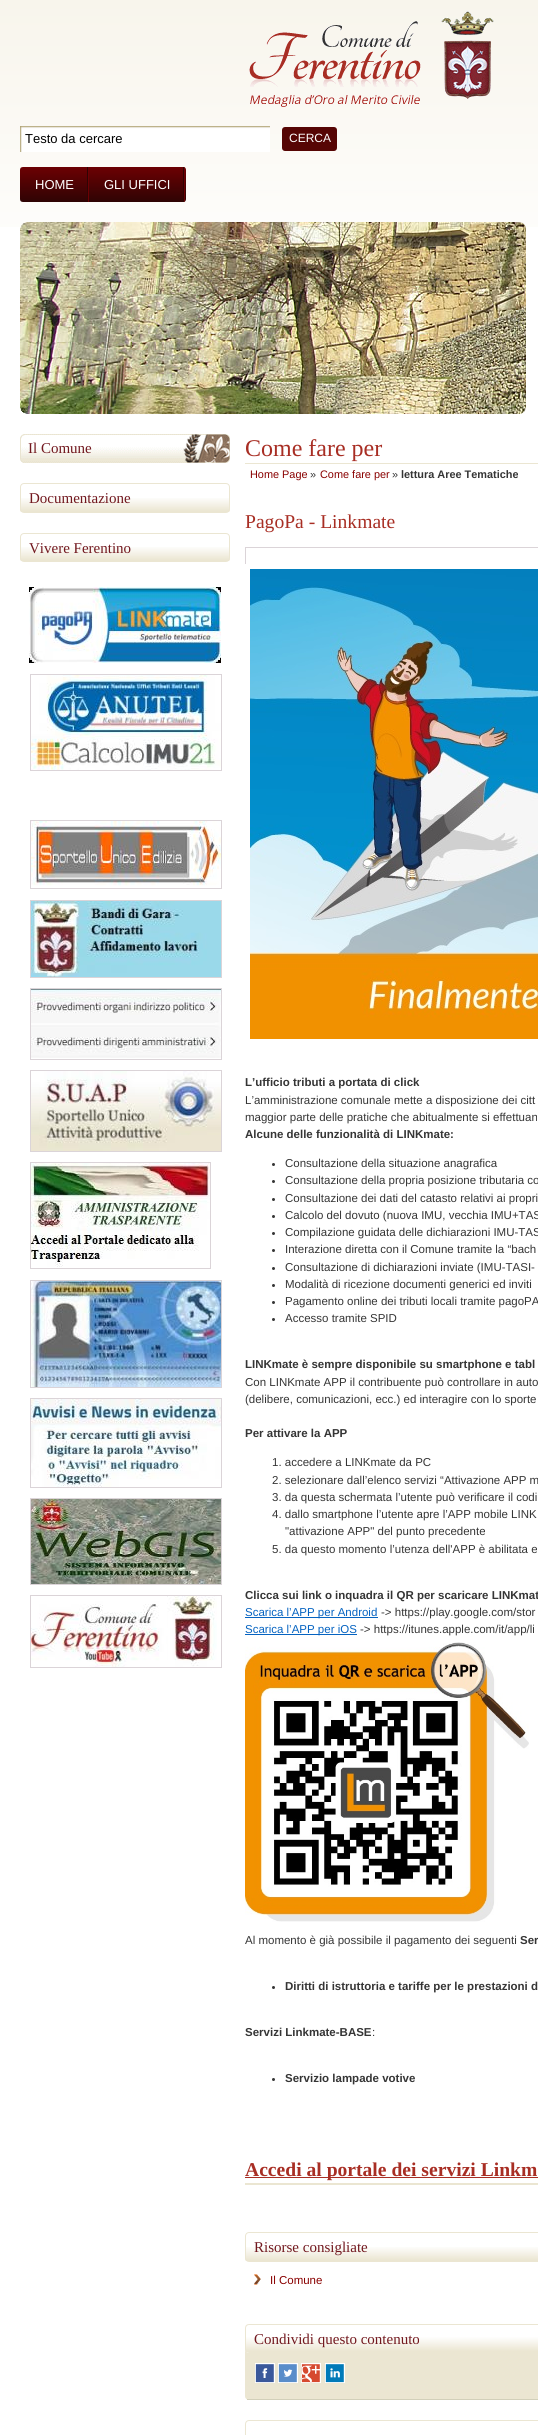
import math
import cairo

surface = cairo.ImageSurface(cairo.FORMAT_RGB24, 538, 2435)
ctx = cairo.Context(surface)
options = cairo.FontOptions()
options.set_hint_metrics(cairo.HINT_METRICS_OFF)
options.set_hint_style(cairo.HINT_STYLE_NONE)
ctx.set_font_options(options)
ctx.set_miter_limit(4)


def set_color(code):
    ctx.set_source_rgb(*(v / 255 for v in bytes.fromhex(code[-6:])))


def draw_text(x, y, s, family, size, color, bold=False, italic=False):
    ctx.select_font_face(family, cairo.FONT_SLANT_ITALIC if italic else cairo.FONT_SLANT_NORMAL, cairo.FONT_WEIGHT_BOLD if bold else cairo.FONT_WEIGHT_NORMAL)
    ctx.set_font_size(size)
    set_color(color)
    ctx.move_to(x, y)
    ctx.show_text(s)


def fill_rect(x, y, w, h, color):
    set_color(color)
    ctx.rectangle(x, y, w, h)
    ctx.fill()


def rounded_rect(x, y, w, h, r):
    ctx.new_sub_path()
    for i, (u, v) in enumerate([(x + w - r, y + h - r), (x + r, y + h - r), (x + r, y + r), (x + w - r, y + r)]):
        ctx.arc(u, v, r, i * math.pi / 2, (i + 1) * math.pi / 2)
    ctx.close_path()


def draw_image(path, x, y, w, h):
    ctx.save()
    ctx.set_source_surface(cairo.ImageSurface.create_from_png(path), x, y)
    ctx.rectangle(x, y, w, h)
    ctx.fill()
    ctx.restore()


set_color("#ffffff")
ctx.paint()
draw_image("assets/img1.png", 0, 0, 538, 227)
draw_image("assets/img2.png", 249, 11, 245, 96)
draw_image("assets/img3.png", 20, 126, 250, 26)
draw_text(25, 143, "Testo da cercare", "Liberation Sans", 13, "#000000")
set_color("#560504")
rounded_rect(282, 127, 55, 24, 3)
ctx.fill()
draw_text(289, 142, "CERCA", "Liberation Sans", 12, "#ffffff")
draw_image("assets/img4.png", 20, 167, 166, 35)
draw_image("assets/img5.png", 87, 167, 2, 35)
draw_text(35, 189, "HOME", "Liberation Sans", 13, "#ffffff")
draw_image("assets/img6.png", 183, 167, 2, 35)
draw_text(104, 189, "GLI UFFICI", "Liberation Sans", 13, "#ffffff")
draw_image("assets/img7.png", 20, 222, 506, 192)
draw_image("assets/img8.png", 20, 434, 210, 29)
draw_text(28, 453, "Il Comune", "Liberation Serif", 15, "#72181f")
draw_image("assets/img9.png", 20, 498, 210, 14)
rounded_rect(20.5, 483.5, 209, 29, 3.5)
set_color("#ebe6d2")
ctx.set_line_width(1)
ctx.stroke()
draw_text(29, 503, "Documentazione", "Liberation Serif", 15, "#72181f")
draw_image("assets/img9.png", 20, 547, 210, 14)
rounded_rect(20.5, 533.5, 209, 28, 3.5)
set_color("#ebe6d2")
ctx.stroke()
draw_text(29, 553, "Vivere Ferentino", "Liberation Serif", 15, "#72181f")
draw_image("assets/img10.png", 29, 587, 192, 76)
ctx.rectangle(30.5, 674.5, 191, 96)
set_color("#dbd4d8")
ctx.stroke()
draw_image("assets/img11.png", 31, 675, 190, 95)
ctx.rectangle(30.5, 820.5, 191, 68)
ctx.stroke()
draw_image("assets/img12.png", 31, 821, 190, 65)
ctx.rectangle(30.5, 900.5, 191, 77)
ctx.stroke()
draw_image("assets/img13.png", 31, 901, 190, 76)
ctx.rectangle(30.5, 988.5, 191, 71)
ctx.stroke()
draw_image("assets/img14.png", 31, 989, 190, 69)
ctx.rectangle(30.5, 1070.5, 191, 81)
ctx.stroke()
draw_image("assets/img15.png", 31, 1071, 190, 80)
ctx.rectangle(30.5, 1162.5, 180, 106)
ctx.stroke()
draw_image("assets/img16.png", 31, 1163, 179, 104)
ctx.rectangle(30.5, 1280.5, 191, 107)
ctx.stroke()
draw_image("assets/img17.png", 31, 1281, 190, 106)
ctx.rectangle(30.5, 1398.5, 191, 89)
ctx.stroke()
draw_image("assets/img18.png", 31, 1399, 190, 88)
ctx.rectangle(30.5, 1498.5, 191, 86)
ctx.stroke()
draw_image("assets/img19.png", 31, 1499, 190, 85)
ctx.rectangle(30.5, 1595.5, 191, 72)
ctx.stroke()
draw_image("assets/img20.png", 31, 1596, 186, 71)
draw_text(245, 456, "Come fare per", "Liberation Serif", 24, "#a82e24")
fill_rect(245, 463, 293, 1, "#ebe6d2")
draw_text(250, 478, "Home Page", "Liberation Sans", 10.9, "#890000")
draw_text(310, 478, "»", "Liberation Sans", 10.9, "#353535")
draw_text(320, 478, "Come fare per", "Liberation Sans", 10.9, "#890000")
draw_text(392, 478, "»", "Liberation Sans", 10.9, "#353535")
draw_text(401, 478, "lettura Aree Tematiche", "Liberation Sans", 10.9, "#353535", bold=True)
draw_text(245, 528, "PagoPa - Linkmate", "Liberation Serif", 19.6, "#a82e24")
fill_rect(245, 547, 293, 1, "#dbd4d8")
fill_rect(245, 547, 1, 17, "#dbd4d8")
draw_image("assets/img21.png", 250, 569, 288, 470)
draw_text(245, 1086, "L’ufficio tributi a portata di click", "Liberation Sans", 11.5, "#353535", bold=True)
draw_text(245, 1104, "L’amministrazione comunale mette a disposizione dei citt", "Liberation Sans", 11.5, "#353535")
draw_text(245, 1121, "maggior parte delle pratiche che abitualmente si effettuan", "Liberation Sans", 11.5, "#353535")
draw_text(245, 1138, "Alcune delle funzionalità di LINKmate:", "Liberation Sans", 11.5, "#353535", bold=True)
ctx.new_path()
ctx.arc(273.5, 1164.5, 1.5, 0, 2 * math.pi)
ctx.fill()
draw_text(285, 1167, "Consultazione della situazione anagrafica", "Liberation Sans", 11.5, "#353535")
ctx.new_path()
ctx.arc(273.5, 1181.5, 1.5, 0, 2 * math.pi)
ctx.fill()
draw_text(285, 1184, "Consultazione della propria posizione tributaria co", "Liberation Sans", 11.5, "#353535")
ctx.new_path()
ctx.arc(273.5, 1199.5, 1.5, 0, 2 * math.pi)
ctx.fill()
draw_text(285, 1202, "Consultazione dei dati del catasto relativi ai propri", "Liberation Sans", 11.5, "#353535")
ctx.new_path()
ctx.arc(273.5, 1216.5, 1.5, 0, 2 * math.pi)
ctx.fill()
draw_text(285, 1219, "Calcolo del dovuto (nuova IMU, vecchia IMU+TAS", "Liberation Sans", 11.5, "#353535")
ctx.new_path()
ctx.arc(273.5, 1233.5, 1.5, 0, 2 * math.pi)
ctx.fill()
draw_text(285, 1236, "Compilazione guidata delle dichiarazioni IMU-TAS", "Liberation Sans", 11.5, "#353535")
ctx.new_path()
ctx.arc(273.5, 1250.5, 1.5, 0, 2 * math.pi)
ctx.fill()
draw_text(285, 1253, "Interazione diretta con il Comune tramite la “bach", "Liberation Sans", 11.5, "#353535")
ctx.new_path()
ctx.arc(273.5, 1268.5, 1.5, 0, 2 * math.pi)
ctx.fill()
draw_text(285, 1271, "Consultazione di dichiarazioni inviate (IMU-TASI-", "Liberation Sans", 11.5, "#353535")
ctx.new_path()
ctx.arc(273.5, 1285.5, 1.5, 0, 2 * math.pi)
ctx.fill()
draw_text(285, 1288, "Modalità di ricezione documenti generici ed inviti", "Liberation Sans", 11.5, "#353535")
ctx.new_path()
ctx.arc(273.5, 1302.5, 1.5, 0, 2 * math.pi)
ctx.fill()
draw_text(285, 1305, "Pagamento online dei tributi locali tramite pagoPA", "Liberation Sans", 11.5, "#353535")
ctx.new_path()
ctx.arc(273.5, 1319.5, 1.5, 0, 2 * math.pi)
ctx.fill()
draw_text(285, 1322, "Accesso tramite SPID", "Liberation Sans", 11.5, "#353535")
draw_text(245, 1368, "LINKmate è sempre disponibile su smartphone e tabl", "Liberation Sans", 11.5, "#353535", bold=True)
draw_text(245, 1386, "Con LINKmate APP il contribuente può controllare in auto", "Liberation Sans", 11.5, "#353535")
draw_text(245, 1403, "(delibere, comunicazioni, ecc.) ed interagire con lo sporte", "Liberation Sans", 11.5, "#353535")
draw_text(245, 1437, "Per attivare la APP", "Liberation Sans", 11.5, "#353535", bold=True)
draw_text(272, 1466, "1. accedere a LINKmate da PC", "Liberation Sans", 11.5, "#353535")
draw_text(272, 1484, "2. selezionare dall’elenco servizi “Attivazione APP m", "Liberation Sans", 11.5, "#353535")
draw_text(272, 1501, "3. da questa schermata l’utente può verificare il codi", "Liberation Sans", 11.5, "#353535")
draw_text(272, 1518, "4. dallo smartphone l’utente apre l’APP mobile LINK", "Liberation Sans", 11.5, "#353535")
draw_text(285, 1535, "\"attivazione APP\" del punto precedente", "Liberation Sans", 11.5, "#353535")
draw_text(272, 1553, "5. da questo momento l’utenza dell'APP è abilitata e", "Liberation Sans", 11.5, "#353535")
draw_text(245, 1599, "Clicca sui link o inquadra il QR per scaricare LINKmat", "Liberation Sans", 11.5, "#353535", bold=True)
fill_rect(245, 1617, 133, 1, "#0563c1")
draw_text(245, 1616, "Scarica l’APP per Android", "Liberation Sans", 11.5, "#0563c1")
draw_text(381, 1616, "-> https://play.google.com/stor", "Liberation Sans", 11.5, "#353535")
fill_rect(245, 1634, 112, 1, "#0563c1")
draw_text(245, 1633, "Scarica l’APP per iOS", "Liberation Sans", 11.5, "#0563c1")
draw_text(360, 1633, "-> https://itunes.apple.com/it/app/li", "Liberation Sans", 11.5, "#353535")
draw_image("assets/img22.png", 245, 1642, 284, 280)
draw_text(245, 1944, "Al momento è già possibile il pagamento dei seguenti", "Liberation Sans", 11.5, "#353535")
draw_text(520, 1944, "Ser", "Liberation Sans", 11.5, "#353535", bold=True)
ctx.new_path()
ctx.arc(273.5, 1987.5, 1.5, 0, 2 * math.pi)
ctx.fill()
draw_text(285, 1990, "Diritti di istruttoria e tariffe per le prestazioni d", "Liberation Sans", 11.5, "#353535", bold=True)
draw_text(245, 2036, "Servizi Linkmate-BASE", "Liberation Sans", 11.5, "#353535", bold=True)
draw_text(372, 2036, ":", "Liberation Sans", 11.5, "#353535")
ctx.new_path()
ctx.arc(273.5, 2079.5, 1.5, 0, 2 * math.pi)
ctx.fill()
draw_text(285, 2082, "Servizio lampade votive", "Liberation Sans", 11.5, "#353535", bold=True)
fill_rect(245, 2183, 293, 2, "#ebe6d2")
fill_rect(245, 2177, 293, 1, "#a82e24")
draw_text(245, 2176, "Accedi al portale dei servizi Linkm", "Liberation Serif", 19.6, "#a82e24", bold=True)
draw_image("assets/img23.png", 245, 2247, 293, 14)
rounded_rect(245.5, 2232.5, 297, 29, 3.5)
set_color("#ebe6d2")
ctx.stroke()
draw_text(254, 2252, "Risorse consigliate", "Liberation Serif", 15, "#72181f")
draw_image("assets/img24.png", 254, 2274, 7, 11)
draw_text(270, 2284, "Il Comune", "Liberation Sans", 11.5, "#890000")
set_color("#ebe6d2")
rounded_rect(245, 2324, 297, 76, 4)
ctx.fill()
fill_rect(247, 2399, 291, 1, "#d2d0ba")
set_color("#ffffff")
rounded_rect(245, 2324, 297, 29, 4)
ctx.fill()
draw_image("assets/img25.png", 245, 2326, 293, 26)
rounded_rect(245.5, 2324.5, 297, 28, 3.5)
set_color("#ebe6d2")
ctx.stroke()
draw_text(254, 2344, "Condividi questo contenuto", "Liberation Serif", 15, "#72181f")
draw_image("assets/img26.png", 255, 2363, 20, 20)
draw_image("assets/img27.png", 278, 2363, 20, 20)
draw_image("assets/img28.png", 301, 2363, 20, 20)
draw_image("assets/img29.png", 325, 2363, 20, 20)
rounded_rect(245.5, 2420.5, 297, 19, 3.5)
set_color("#ebe6d2")
ctx.stroke()
surface.write_to_png("output.png")
